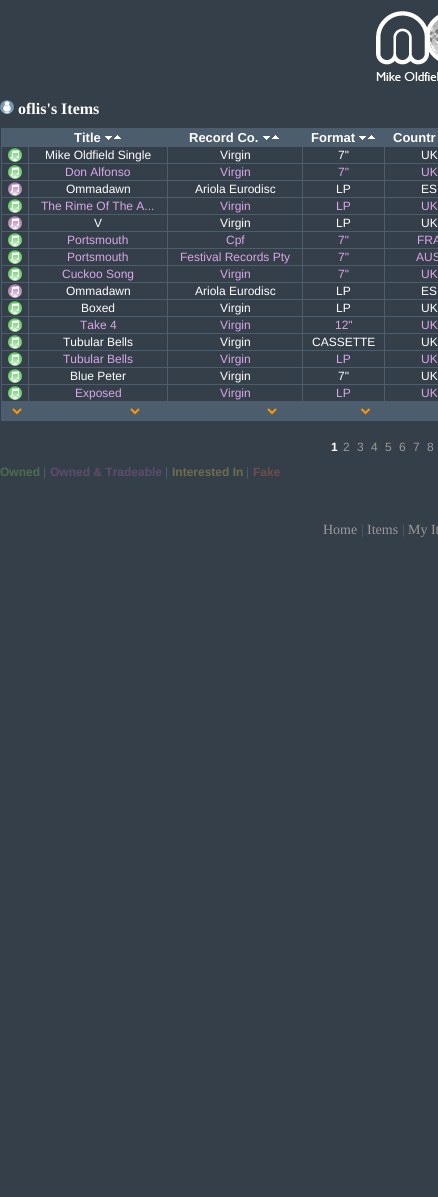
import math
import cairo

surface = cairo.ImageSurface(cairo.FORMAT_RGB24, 438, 1197)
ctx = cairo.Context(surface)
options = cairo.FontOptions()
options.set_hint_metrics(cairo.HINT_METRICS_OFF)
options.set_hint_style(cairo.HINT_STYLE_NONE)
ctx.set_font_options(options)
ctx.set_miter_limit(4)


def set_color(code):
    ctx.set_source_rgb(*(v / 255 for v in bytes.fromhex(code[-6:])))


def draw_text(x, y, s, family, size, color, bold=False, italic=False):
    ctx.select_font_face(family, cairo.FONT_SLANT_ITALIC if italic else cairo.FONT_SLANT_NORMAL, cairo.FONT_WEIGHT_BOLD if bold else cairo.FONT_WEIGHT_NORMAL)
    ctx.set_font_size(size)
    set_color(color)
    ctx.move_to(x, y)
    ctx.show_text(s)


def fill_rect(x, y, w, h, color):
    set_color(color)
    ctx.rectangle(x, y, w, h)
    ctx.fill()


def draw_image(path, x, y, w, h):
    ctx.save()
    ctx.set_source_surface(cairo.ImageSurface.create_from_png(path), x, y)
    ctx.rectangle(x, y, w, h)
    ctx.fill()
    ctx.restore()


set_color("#353f49")
ctx.paint()
draw_image("assets/img1.png", 376, 11, 62, 70)
draw_image("assets/img2.png", 0, 100, 14, 14)
draw_text(18, 114, "oflis's Items", "Liberation Serif", 16, "#ffffff", bold=True)
fill_rect(1, 128, 437, 1, "#4c5d6e")
fill_rect(1, 420, 437, 1, "#4c5d6e")
fill_rect(1, 128, 1, 293, "#4c5d6e")
fill_rect(2, 129, 436, 18, "#4c5d6e")
draw_text(74, 142, "Title", "Liberation Sans", 13, "#ffffff", bold=True)
draw_image("assets/img3.png", 105, 136, 7, 4)
draw_image("assets/img4.png", 114, 135, 7, 4)
draw_text(189, 142, "Record Co.", "Liberation Sans", 13, "#ffffff", bold=True)
draw_image("assets/img3.png", 263, 136, 7, 4)
draw_image("assets/img4.png", 272, 135, 7, 4)
draw_text(311, 142, "Format", "Liberation Sans", 13, "#ffffff", bold=True)
draw_image("assets/img3.png", 359, 136, 7, 4)
draw_image("assets/img4.png", 368, 135, 7, 4)
draw_text(393, 142, "Countr", "Liberation Sans", 13, "#ffffff", bold=True)
draw_image("assets/img5.png", 8, 148, 14, 14)
fill_rect(384, 163, 54, 1, "#4c5d6e")
fill_rect(384, 180, 54, 1, "#4c5d6e")
fill_rect(384, 197, 54, 1, "#4c5d6e")
fill_rect(384, 214, 54, 1, "#4c5d6e")
fill_rect(384, 231, 54, 1, "#4c5d6e")
fill_rect(384, 248, 54, 1, "#4c5d6e")
fill_rect(384, 265, 54, 1, "#4c5d6e")
fill_rect(384, 282, 54, 1, "#4c5d6e")
fill_rect(384, 299, 54, 1, "#4c5d6e")
fill_rect(384, 316, 54, 1, "#4c5d6e")
fill_rect(384, 333, 54, 1, "#4c5d6e")
fill_rect(384, 350, 54, 1, "#4c5d6e")
fill_rect(384, 367, 54, 1, "#4c5d6e")
fill_rect(384, 384, 54, 1, "#4c5d6e")
fill_rect(384, 401, 54, 1, "#4c5d6e")
fill_rect(384, 384, 1, 18, "#4c5d6e")
fill_rect(302, 384, 83, 1, "#4c5d6e")
fill_rect(384, 367, 1, 18, "#4c5d6e")
fill_rect(302, 367, 83, 1, "#4c5d6e")
fill_rect(384, 350, 1, 18, "#4c5d6e")
fill_rect(302, 350, 83, 1, "#4c5d6e")
fill_rect(384, 333, 1, 18, "#4c5d6e")
fill_rect(302, 333, 83, 1, "#4c5d6e")
fill_rect(384, 316, 1, 18, "#4c5d6e")
fill_rect(302, 316, 83, 1, "#4c5d6e")
fill_rect(384, 299, 1, 18, "#4c5d6e")
fill_rect(302, 299, 83, 1, "#4c5d6e")
fill_rect(384, 282, 1, 18, "#4c5d6e")
fill_rect(302, 282, 83, 1, "#4c5d6e")
fill_rect(384, 265, 1, 18, "#4c5d6e")
fill_rect(302, 265, 83, 1, "#4c5d6e")
fill_rect(384, 248, 1, 18, "#4c5d6e")
fill_rect(302, 248, 83, 1, "#4c5d6e")
fill_rect(384, 231, 1, 18, "#4c5d6e")
fill_rect(302, 231, 83, 1, "#4c5d6e")
fill_rect(384, 214, 1, 18, "#4c5d6e")
fill_rect(302, 214, 83, 1, "#4c5d6e")
fill_rect(384, 197, 1, 18, "#4c5d6e")
fill_rect(302, 197, 83, 1, "#4c5d6e")
fill_rect(384, 180, 1, 18, "#4c5d6e")
fill_rect(302, 180, 83, 1, "#4c5d6e")
fill_rect(384, 163, 1, 18, "#4c5d6e")
fill_rect(302, 163, 83, 1, "#4c5d6e")
fill_rect(302, 401, 83, 1, "#4c5d6e")
fill_rect(302, 384, 1, 18, "#4c5d6e")
fill_rect(167, 384, 136, 1, "#4c5d6e")
fill_rect(302, 367, 1, 18, "#4c5d6e")
fill_rect(167, 367, 136, 1, "#4c5d6e")
fill_rect(302, 350, 1, 18, "#4c5d6e")
fill_rect(167, 350, 136, 1, "#4c5d6e")
fill_rect(302, 333, 1, 18, "#4c5d6e")
fill_rect(167, 333, 136, 1, "#4c5d6e")
fill_rect(302, 316, 1, 18, "#4c5d6e")
fill_rect(167, 316, 136, 1, "#4c5d6e")
fill_rect(302, 299, 1, 18, "#4c5d6e")
fill_rect(167, 299, 136, 1, "#4c5d6e")
fill_rect(302, 282, 1, 18, "#4c5d6e")
fill_rect(167, 282, 136, 1, "#4c5d6e")
fill_rect(302, 265, 1, 18, "#4c5d6e")
fill_rect(167, 265, 136, 1, "#4c5d6e")
fill_rect(302, 248, 1, 18, "#4c5d6e")
fill_rect(167, 248, 136, 1, "#4c5d6e")
fill_rect(302, 231, 1, 18, "#4c5d6e")
fill_rect(167, 231, 136, 1, "#4c5d6e")
fill_rect(302, 214, 1, 18, "#4c5d6e")
fill_rect(167, 214, 136, 1, "#4c5d6e")
fill_rect(302, 197, 1, 18, "#4c5d6e")
fill_rect(167, 197, 136, 1, "#4c5d6e")
fill_rect(302, 180, 1, 18, "#4c5d6e")
fill_rect(167, 180, 136, 1, "#4c5d6e")
fill_rect(302, 163, 1, 18, "#4c5d6e")
fill_rect(167, 163, 136, 1, "#4c5d6e")
fill_rect(167, 401, 136, 1, "#4c5d6e")
fill_rect(167, 384, 1, 18, "#4c5d6e")
fill_rect(28, 384, 140, 1, "#4c5d6e")
fill_rect(167, 367, 1, 18, "#4c5d6e")
fill_rect(28, 367, 140, 1, "#4c5d6e")
fill_rect(167, 350, 1, 18, "#4c5d6e")
fill_rect(28, 350, 140, 1, "#4c5d6e")
fill_rect(167, 333, 1, 18, "#4c5d6e")
fill_rect(28, 333, 140, 1, "#4c5d6e")
fill_rect(167, 316, 1, 18, "#4c5d6e")
fill_rect(28, 316, 140, 1, "#4c5d6e")
fill_rect(167, 299, 1, 18, "#4c5d6e")
fill_rect(28, 299, 140, 1, "#4c5d6e")
fill_rect(167, 282, 1, 18, "#4c5d6e")
fill_rect(28, 282, 140, 1, "#4c5d6e")
fill_rect(167, 265, 1, 18, "#4c5d6e")
fill_rect(28, 265, 140, 1, "#4c5d6e")
fill_rect(167, 248, 1, 18, "#4c5d6e")
fill_rect(28, 248, 140, 1, "#4c5d6e")
fill_rect(167, 231, 1, 18, "#4c5d6e")
fill_rect(28, 231, 140, 1, "#4c5d6e")
fill_rect(167, 214, 1, 18, "#4c5d6e")
fill_rect(28, 214, 140, 1, "#4c5d6e")
fill_rect(167, 197, 1, 18, "#4c5d6e")
fill_rect(28, 197, 140, 1, "#4c5d6e")
fill_rect(167, 180, 1, 18, "#4c5d6e")
fill_rect(28, 180, 140, 1, "#4c5d6e")
fill_rect(167, 163, 1, 18, "#4c5d6e")
fill_rect(28, 163, 140, 1, "#4c5d6e")
fill_rect(28, 401, 140, 1, "#4c5d6e")
fill_rect(28, 384, 1, 18, "#4c5d6e")
fill_rect(1, 384, 28, 1, "#4c5d6e")
fill_rect(28, 367, 1, 18, "#4c5d6e")
fill_rect(1, 367, 28, 1, "#4c5d6e")
fill_rect(28, 350, 1, 18, "#4c5d6e")
fill_rect(1, 350, 28, 1, "#4c5d6e")
fill_rect(28, 333, 1, 18, "#4c5d6e")
fill_rect(1, 333, 28, 1, "#4c5d6e")
fill_rect(28, 316, 1, 18, "#4c5d6e")
fill_rect(1, 316, 28, 1, "#4c5d6e")
fill_rect(28, 299, 1, 18, "#4c5d6e")
fill_rect(1, 299, 28, 1, "#4c5d6e")
fill_rect(28, 282, 1, 18, "#4c5d6e")
fill_rect(1, 282, 28, 1, "#4c5d6e")
fill_rect(28, 265, 1, 18, "#4c5d6e")
fill_rect(1, 265, 28, 1, "#4c5d6e")
fill_rect(28, 248, 1, 18, "#4c5d6e")
fill_rect(1, 248, 28, 1, "#4c5d6e")
fill_rect(28, 231, 1, 18, "#4c5d6e")
fill_rect(1, 231, 28, 1, "#4c5d6e")
fill_rect(28, 214, 1, 18, "#4c5d6e")
fill_rect(1, 214, 28, 1, "#4c5d6e")
fill_rect(28, 197, 1, 18, "#4c5d6e")
fill_rect(1, 197, 28, 1, "#4c5d6e")
fill_rect(28, 180, 1, 18, "#4c5d6e")
fill_rect(1, 180, 28, 1, "#4c5d6e")
fill_rect(28, 163, 1, 18, "#4c5d6e")
fill_rect(1, 163, 28, 1, "#4c5d6e")
fill_rect(28, 146, 1, 18, "#4c5d6e")
draw_text(45, 159, "Mike Oldfield Single", "Liberation Sans", 12, "#ffffff")
fill_rect(167, 146, 1, 18, "#4c5d6e")
draw_text(220, 159, "Virgin", "Liberation Sans", 12, "#ffffff")
fill_rect(302, 146, 1, 18, "#4c5d6e")
draw_text(338, 159, "7\"", "Liberation Sans", 12, "#ffffff")
fill_rect(384, 146, 1, 18, "#4c5d6e")
draw_text(421, 159, "UK", "Liberation Sans", 12, "#ffffff")
draw_image("assets/img5.png", 8, 165, 14, 14)
draw_text(65, 176, "Don Alfonso", "Liberation Sans", 12, "#d8a6e8")
draw_text(220, 176, "Virgin", "Liberation Sans", 12, "#d8a6e8")
draw_text(338, 176, "7\"", "Liberation Sans", 12, "#d8a6e8")
draw_text(421, 176, "UK", "Liberation Sans", 12, "#d8a6e8")
draw_image("assets/img6.png", 8, 182, 14, 14)
draw_text(66, 193, "Ommadawn", "Liberation Sans", 12, "#ffffff")
draw_text(195, 193, "Ariola Eurodisc", "Liberation Sans", 12, "#ffffff")
draw_text(336, 193, "LP", "Liberation Sans", 12, "#ffffff")
draw_text(421, 193, "ES", "Liberation Sans", 12, "#ffffff")
draw_image("assets/img5.png", 8, 199, 14, 14)
draw_text(41, 210, "The Rime Of The A...", "Liberation Sans", 12, "#d8a6e8")
draw_text(220, 210, "Virgin", "Liberation Sans", 12, "#d8a6e8")
draw_text(336, 210, "LP", "Liberation Sans", 12, "#d8a6e8")
draw_text(421, 210, "UK", "Liberation Sans", 12, "#d8a6e8")
draw_image("assets/img6.png", 8, 216, 14, 14)
draw_text(94, 227, "V", "Liberation Sans", 12, "#ffffff")
draw_text(220, 227, "Virgin", "Liberation Sans", 12, "#ffffff")
draw_text(336, 227, "LP", "Liberation Sans", 12, "#ffffff")
draw_text(421, 227, "UK", "Liberation Sans", 12, "#ffffff")
draw_image("assets/img5.png", 8, 233, 14, 14)
draw_text(67, 244, "Portsmouth", "Liberation Sans", 12, "#d8a6e8")
draw_text(226, 244, "Cpf", "Liberation Sans", 12, "#d8a6e8")
draw_text(338, 244, "7\"", "Liberation Sans", 12, "#d8a6e8")
draw_text(417, 244, "FRA", "Liberation Sans", 12, "#d8a6e8")
draw_image("assets/img5.png", 8, 250, 14, 14)
draw_text(67, 261, "Portsmouth", "Liberation Sans", 12, "#d8a6e8")
draw_text(180, 261, "Festival Records Pty", "Liberation Sans", 12, "#d8a6e8")
draw_text(338, 261, "7\"", "Liberation Sans", 12, "#d8a6e8")
draw_text(416, 261, "AUS", "Liberation Sans", 12, "#d8a6e8")
draw_image("assets/img5.png", 8, 267, 14, 14)
draw_text(62, 278, "Cuckoo Song", "Liberation Sans", 12, "#d8a6e8")
draw_text(220, 278, "Virgin", "Liberation Sans", 12, "#d8a6e8")
draw_text(338, 278, "7\"", "Liberation Sans", 12, "#d8a6e8")
draw_text(421, 278, "UK", "Liberation Sans", 12, "#d8a6e8")
draw_image("assets/img6.png", 8, 284, 14, 14)
draw_text(66, 295, "Ommadawn", "Liberation Sans", 12, "#ffffff")
draw_text(195, 295, "Ariola Eurodisc", "Liberation Sans", 12, "#ffffff")
draw_text(336, 295, "LP", "Liberation Sans", 12, "#ffffff")
draw_text(421, 295, "ES", "Liberation Sans", 12, "#ffffff")
draw_image("assets/img5.png", 8, 301, 14, 14)
draw_text(81, 312, "Boxed", "Liberation Sans", 12, "#ffffff")
draw_text(220, 312, "Virgin", "Liberation Sans", 12, "#ffffff")
draw_text(336, 312, "LP", "Liberation Sans", 12, "#ffffff")
draw_text(421, 312, "UK", "Liberation Sans", 12, "#ffffff")
draw_image("assets/img5.png", 8, 318, 14, 14)
draw_text(80, 329, "Take 4", "Liberation Sans", 12, "#d8a6e8")
draw_text(220, 329, "Virgin", "Liberation Sans", 12, "#d8a6e8")
draw_text(335, 329, "12\"", "Liberation Sans", 12, "#d8a6e8")
draw_text(421, 329, "UK", "Liberation Sans", 12, "#d8a6e8")
draw_image("assets/img5.png", 8, 335, 14, 14)
draw_text(63, 346, "Tubular Bells", "Liberation Sans", 12, "#ffffff")
draw_text(220, 346, "Virgin", "Liberation Sans", 12, "#ffffff")
draw_text(312, 346, "CASSETTE", "Liberation Sans", 12, "#ffffff")
draw_text(421, 346, "UK", "Liberation Sans", 12, "#ffffff")
draw_image("assets/img5.png", 8, 352, 14, 14)
draw_text(63, 363, "Tubular Bells", "Liberation Sans", 12, "#d8a6e8")
draw_text(220, 363, "Virgin", "Liberation Sans", 12, "#d8a6e8")
draw_text(336, 363, "LP", "Liberation Sans", 12, "#d8a6e8")
draw_text(421, 363, "UK", "Liberation Sans", 12, "#d8a6e8")
draw_image("assets/img5.png", 8, 369, 14, 14)
draw_text(70, 380, "Blue Peter", "Liberation Sans", 12, "#ffffff")
draw_text(220, 380, "Virgin", "Liberation Sans", 12, "#ffffff")
draw_text(338, 380, "7\"", "Liberation Sans", 12, "#ffffff")
draw_text(421, 380, "UK", "Liberation Sans", 12, "#ffffff")
fill_rect(1, 401, 28, 1, "#4c5d6e")
draw_image("assets/img5.png", 8, 386, 14, 14)
draw_text(75, 397, "Exposed", "Liberation Sans", 12, "#d8a6e8")
draw_text(220, 397, "Virgin", "Liberation Sans", 12, "#d8a6e8")
draw_text(336, 397, "LP", "Liberation Sans", 12, "#d8a6e8")
draw_text(421, 397, "UK", "Liberation Sans", 12, "#d8a6e8")
fill_rect(2, 402, 436, 18, "#4c5d6e")
ctx.new_path()
ctx.move_to(13, 409)
ctx.line_to(17, 413)
ctx.line_to(21, 409)
set_color("#ff9900")
ctx.stroke()
ctx.new_path()
ctx.move_to(131, 409)
ctx.line_to(135, 413)
ctx.line_to(139, 409)
ctx.stroke()
ctx.new_path()
ctx.move_to(268, 409)
ctx.line_to(272, 413)
ctx.line_to(276, 409)
ctx.stroke()
ctx.new_path()
ctx.move_to(361.5, 409)
ctx.line_to(365.5, 413)
ctx.line_to(369.5, 409)
ctx.stroke()
draw_text(331, 451, "1", "Liberation Sans", 12, "#ffffff", bold=True)
draw_text(343, 451, "2", "Liberation Sans", 12, "#999999")
draw_text(357, 451, "3", "Liberation Sans", 12, "#999999")
draw_text(371, 451, "4", "Liberation Sans", 12, "#999999")
draw_text(385, 451, "5", "Liberation Sans", 12, "#999999")
draw_text(399, 451, "6", "Liberation Sans", 12, "#999999")
draw_text(413, 451, "7", "Liberation Sans", 12, "#999999")
draw_text(427, 451, "8", "Liberation Sans", 12, "#999999")
draw_text(0, 476, "Owned", "Liberation Sans", 12, "#4c6e4c", bold=True)
draw_text(43, 476, "|", "Liberation Sans", 12, "#4c5d6e")
draw_text(50, 476, "Owned & Tradeable", "Liberation Sans", 12, "#5c4c6e", bold=True)
draw_text(165, 476, "|", "Liberation Sans", 12, "#4c5d6e")
draw_text(172, 476, "Interested In", "Liberation Sans", 12, "#6e6e4c", bold=True)
draw_text(246, 476, "|", "Liberation Sans", 12, "#4c5d6e")
draw_text(253, 476, "Fake", "Liberation Sans", 12, "#6e4c4c", bold=True)
draw_text(323, 534, "Home", "Liberation Serif", 14, "#999999")
draw_text(361, 534, "|", "Liberation Serif", 14, "#4c5d6e")
draw_text(367, 534, "Items", "Liberation Serif", 14, "#999999")
draw_text(402, 534, "|", "Liberation Serif", 14, "#4c5d6e")
draw_text(408, 534, "My It", "Liberation Serif", 14, "#999999")
surface.write_to_png("output.png")
